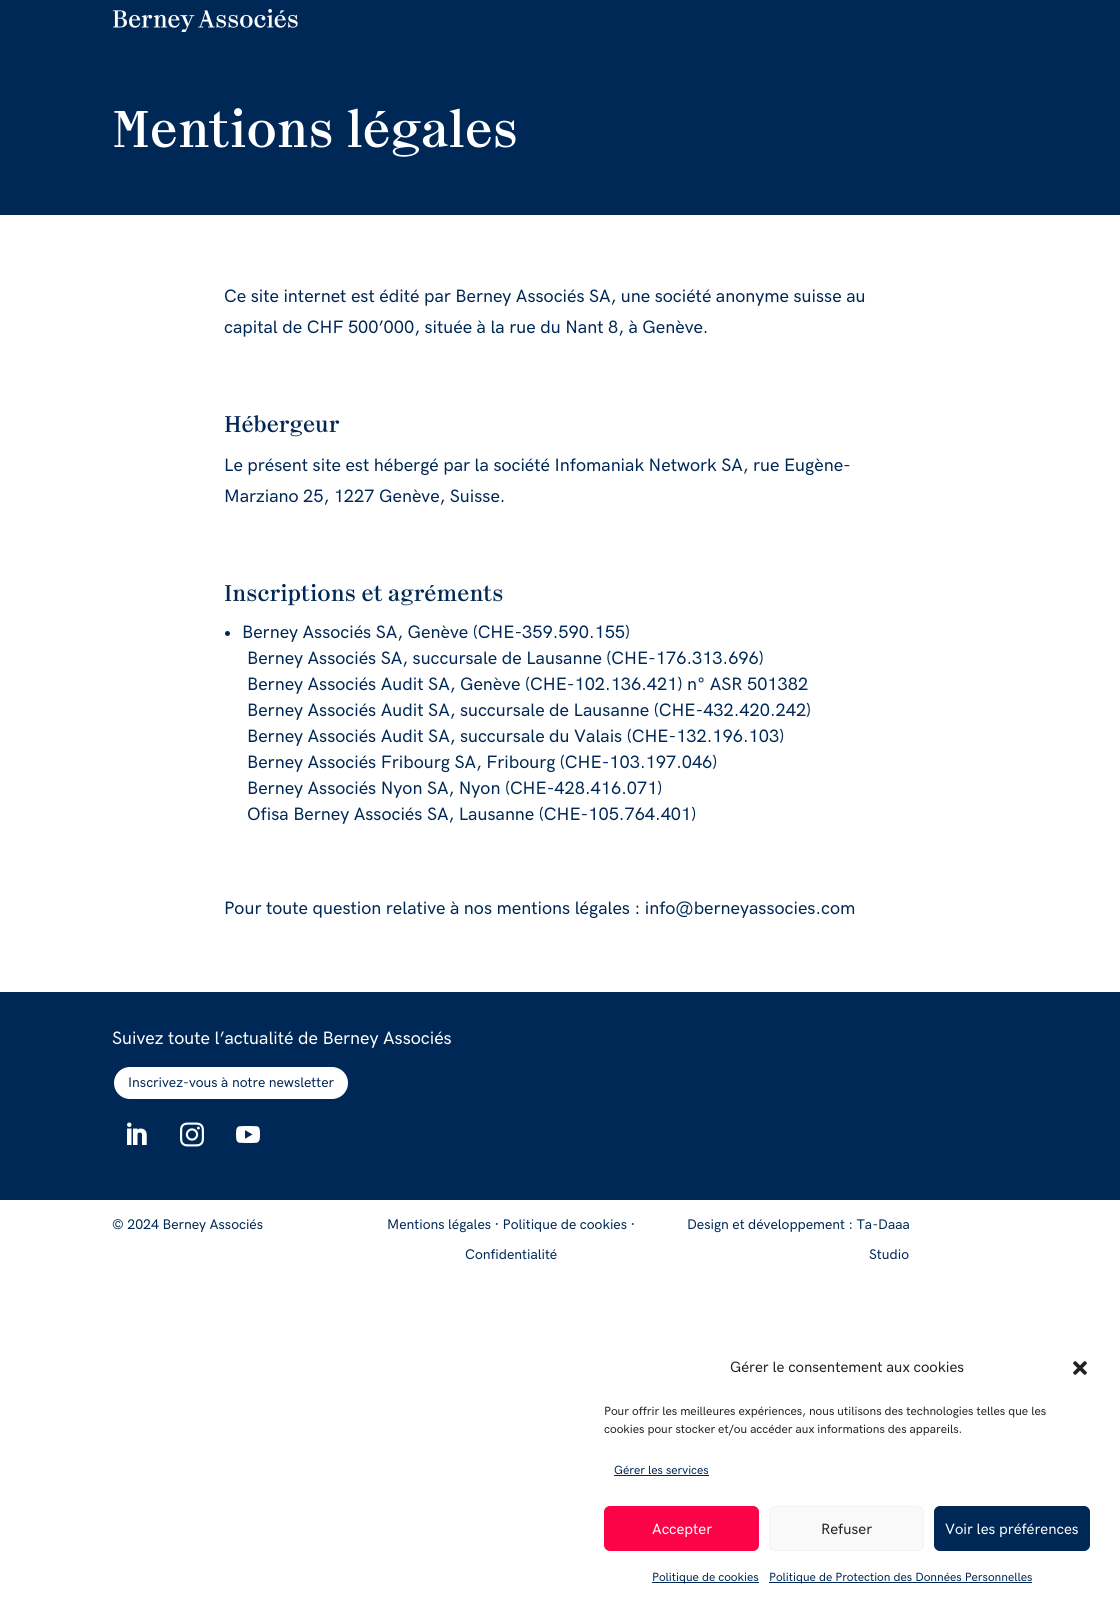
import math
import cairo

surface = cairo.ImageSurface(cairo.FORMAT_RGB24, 1120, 1619)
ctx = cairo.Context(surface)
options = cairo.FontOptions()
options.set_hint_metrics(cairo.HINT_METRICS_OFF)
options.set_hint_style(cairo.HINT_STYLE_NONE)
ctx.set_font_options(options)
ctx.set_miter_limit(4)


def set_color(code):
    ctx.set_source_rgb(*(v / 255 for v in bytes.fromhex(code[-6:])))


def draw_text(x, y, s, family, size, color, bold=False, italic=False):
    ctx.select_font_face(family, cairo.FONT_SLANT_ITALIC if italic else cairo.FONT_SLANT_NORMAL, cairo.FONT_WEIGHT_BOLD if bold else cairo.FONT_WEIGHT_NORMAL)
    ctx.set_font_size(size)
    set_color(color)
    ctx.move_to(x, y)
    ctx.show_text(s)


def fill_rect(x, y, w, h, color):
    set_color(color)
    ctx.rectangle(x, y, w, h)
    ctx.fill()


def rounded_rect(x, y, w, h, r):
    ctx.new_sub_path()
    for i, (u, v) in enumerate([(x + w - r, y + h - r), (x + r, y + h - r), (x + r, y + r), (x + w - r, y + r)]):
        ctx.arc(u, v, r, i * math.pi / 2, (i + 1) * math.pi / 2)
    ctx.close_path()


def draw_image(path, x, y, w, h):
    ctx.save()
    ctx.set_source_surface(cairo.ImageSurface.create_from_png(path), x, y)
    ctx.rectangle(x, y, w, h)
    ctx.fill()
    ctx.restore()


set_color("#ffffff")
ctx.paint()
fill_rect(0, 0, 1120, 215, "#002856")
draw_image("assets/img1.png", 113, 9, 185, 23)
draw_text(112, 147, "Mentions légales", "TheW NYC", 50, "#ffffff")
draw_text(224, 302, "Ce site internet est édité par Berney Associés SA, une société anonyme suisse au", "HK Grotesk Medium", 18, "#002856")
draw_text(224, 333, "capital de CHF 500’000, située à la rue du Nant 8, à Genève.", "HK Grotesk Medium", 18, "#002856")
draw_text(224, 432, "Hébergeur", "TheW NYC", 22, "#002856")
draw_text(224, 471, "Le présent site est hébergé par la société Infomaniak Network SA, rue Eugène-", "HK Grotesk Medium", 18, "#002856")
draw_text(224, 502, "Marziano 25, 1227 Genève, Suisse.", "HK Grotesk Medium", 18, "#002856")
draw_text(224, 601, "Inscriptions et agréments", "TheW NYC", 22, "#002856")
ctx.new_path()
ctx.arc(227.5, 633.5, 2.5, 0, 2 * math.pi)
ctx.fill()
draw_text(242, 638, "Berney Associés SA, Genève (CHE-359.590.155)", "HK Grotesk Medium", 18, "#002856")
draw_text(247, 664, "Berney Associés SA, succursale de Lausanne (CHE-176.313.696)", "HK Grotesk Medium", 18, "#002856")
draw_text(247, 690, "Berney Associés Audit SA, Genève (CHE-102.136.421) n° ASR 501382", "HK Grotesk Medium", 18, "#002856")
draw_text(247, 716, "Berney Associés Audit SA, succursale de Lausanne (CHE-432.420.242)", "HK Grotesk Medium", 18, "#002856")
draw_text(247, 742, "Berney Associés Audit SA, succursale du Valais (CHE-132.196.103)", "HK Grotesk Medium", 18, "#002856")
draw_text(247, 768, "Berney Associés Fribourg SA, Fribourg (CHE-103.197.046)", "HK Grotesk Medium", 18, "#002856")
draw_text(247, 794, "Berney Associés Nyon SA, Nyon (CHE-428.416.071)", "HK Grotesk Medium", 18, "#002856")
draw_text(247, 820, "Ofisa Berney Associés SA, Lausanne (CHE-105.764.401)", "HK Grotesk Medium", 18, "#002856")
draw_text(224, 914, "Pour toute question relative à nos mentions légales : info@berneyassocies.com", "HK Grotesk Medium", 18, "#002856")
fill_rect(0, 992, 1120, 208, "#002856")
draw_text(112, 1044, "Suivez toute l’actualité de Berney Associés", "HK Grotesk Medium", 18, "#ffffff")
rounded_rect(113, 1066, 236, 34, 17)
ctx.fill_preserve()
set_color("#002856")
ctx.stroke()
draw_text(128, 1087, "Inscrivez-vous à notre newsletter", "HK Grotesk Medium", 14, "#002856")
draw_image("assets/img2.png", 127, 1122, 20, 23)
draw_image("assets/img3.png", 180, 1122, 24, 25)
draw_image("assets/img4.png", 236, 1126, 24, 17)
draw_text(112, 1229, "© 2024 Berney Associés", "HK Grotesk Medium", 14, "#002856")
draw_text(387, 1229, "Mentions légales · Politique de cookies ·", "HK Grotesk Medium", 14, "#002856")
draw_text(465, 1259, "Confidentialité", "HK Grotesk Medium", 14, "#002856")
draw_text(687, 1229, "Design et développement : Ta-Daaa", "HK Grotesk Medium", 14, "#002856")
draw_text(869, 1259, "Studio", "HK Grotesk Medium", 14, "#002856")
draw_text(730, 1372, "Gérer le consentement aux cookies", "HK Grotesk Medium", 15, "#222222")
draw_image("assets/img5.png", 1073, 1361, 14, 14)
draw_text(604, 1415, "Pour offrir les meilleures expériences, nous utilisons des technologies telles que les", "HK Grotesk Medium", 12, "#222222")
draw_text(604, 1433, "cookies pour stocker et/ou accéder aux informations des appareils.", "HK Grotesk Medium", 12, "#222222")
draw_text(614, 1474, "Gérer les services", "HK Grotesk Medium", 12, "#002856")
fill_rect(614, 1475, 95, 1, "#002856")
set_color("#fb0346")
rounded_rect(604.5, 1506.5, 154, 44, 5.5)
ctx.fill_preserve()
ctx.set_line_width(1)
ctx.stroke()
draw_text(652, 1534, "Accepter", "HK Grotesk Medium", 15, "#ffffff")
set_color("#f9f9f9")
rounded_rect(769.5, 1506.5, 154, 44, 5.5)
ctx.fill_preserve()
set_color("#f2f2f2")
ctx.stroke()
draw_text(821, 1534, "Refuser", "HK Grotesk Medium", 15, "#222222")
set_color("#002856")
rounded_rect(934.5, 1506.5, 155, 44, 5.5)
ctx.fill_preserve()
ctx.stroke()
draw_text(945, 1534, "Voir les préférences", "HK Grotesk Medium", 15, "#ffffff")
fill_rect(652, 1582, 107, 1, "#002856")
draw_text(652, 1581, "Politique de cookies", "HK Grotesk Medium", 12, "#002856")
fill_rect(769, 1582, 263, 1, "#002856")
draw_text(769, 1581, "Politique de Protection des Données Personnelles", "HK Grotesk Medium", 12, "#002856")
surface.write_to_png("output.png")
